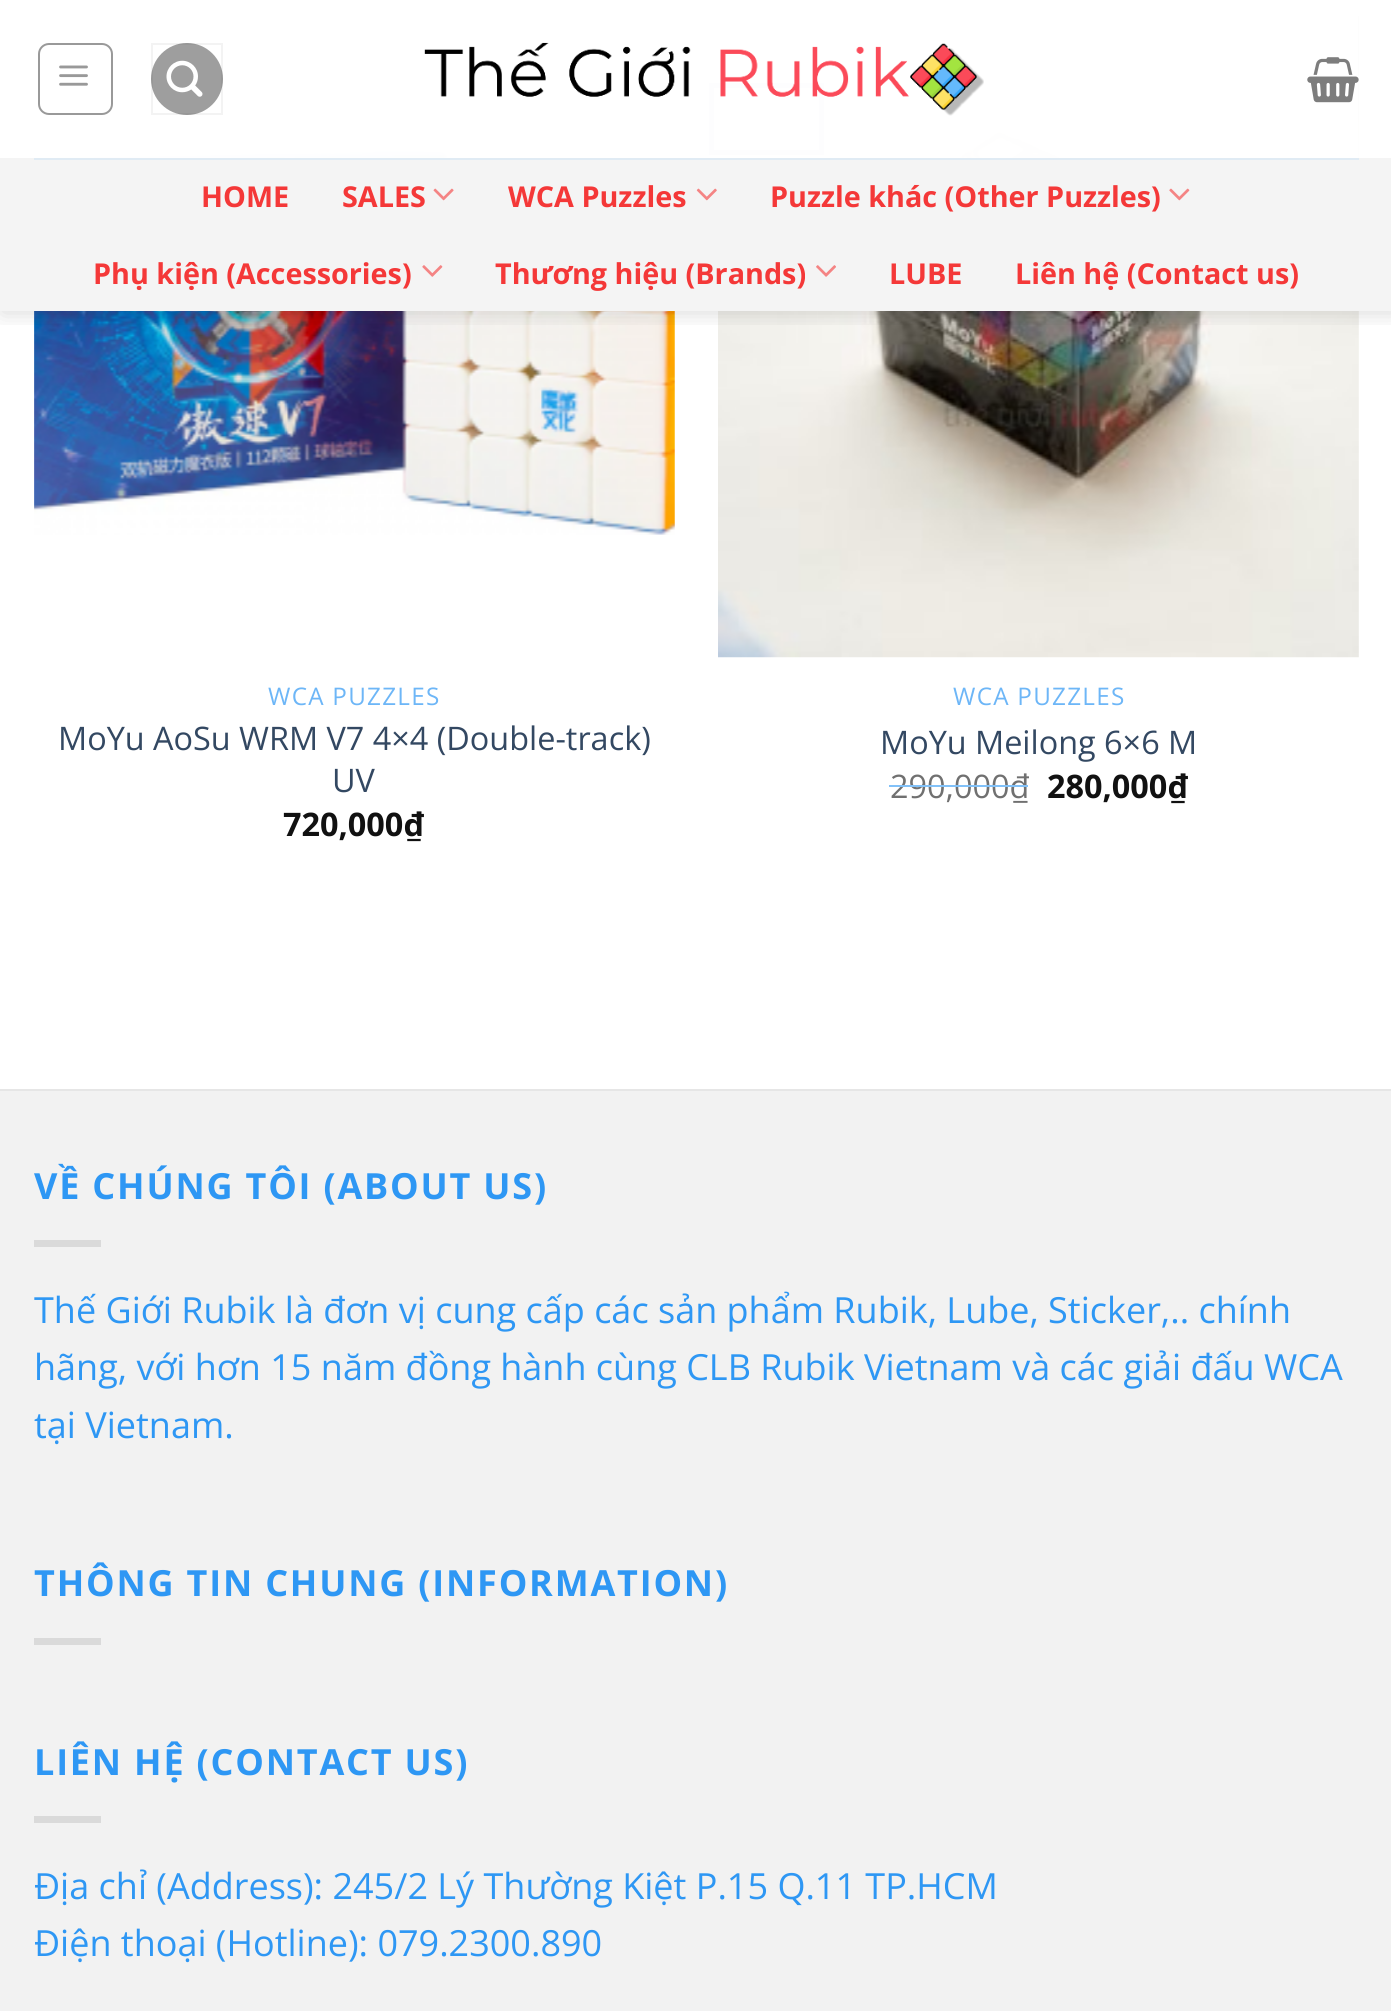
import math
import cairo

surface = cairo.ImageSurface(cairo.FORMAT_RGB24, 1391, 2011)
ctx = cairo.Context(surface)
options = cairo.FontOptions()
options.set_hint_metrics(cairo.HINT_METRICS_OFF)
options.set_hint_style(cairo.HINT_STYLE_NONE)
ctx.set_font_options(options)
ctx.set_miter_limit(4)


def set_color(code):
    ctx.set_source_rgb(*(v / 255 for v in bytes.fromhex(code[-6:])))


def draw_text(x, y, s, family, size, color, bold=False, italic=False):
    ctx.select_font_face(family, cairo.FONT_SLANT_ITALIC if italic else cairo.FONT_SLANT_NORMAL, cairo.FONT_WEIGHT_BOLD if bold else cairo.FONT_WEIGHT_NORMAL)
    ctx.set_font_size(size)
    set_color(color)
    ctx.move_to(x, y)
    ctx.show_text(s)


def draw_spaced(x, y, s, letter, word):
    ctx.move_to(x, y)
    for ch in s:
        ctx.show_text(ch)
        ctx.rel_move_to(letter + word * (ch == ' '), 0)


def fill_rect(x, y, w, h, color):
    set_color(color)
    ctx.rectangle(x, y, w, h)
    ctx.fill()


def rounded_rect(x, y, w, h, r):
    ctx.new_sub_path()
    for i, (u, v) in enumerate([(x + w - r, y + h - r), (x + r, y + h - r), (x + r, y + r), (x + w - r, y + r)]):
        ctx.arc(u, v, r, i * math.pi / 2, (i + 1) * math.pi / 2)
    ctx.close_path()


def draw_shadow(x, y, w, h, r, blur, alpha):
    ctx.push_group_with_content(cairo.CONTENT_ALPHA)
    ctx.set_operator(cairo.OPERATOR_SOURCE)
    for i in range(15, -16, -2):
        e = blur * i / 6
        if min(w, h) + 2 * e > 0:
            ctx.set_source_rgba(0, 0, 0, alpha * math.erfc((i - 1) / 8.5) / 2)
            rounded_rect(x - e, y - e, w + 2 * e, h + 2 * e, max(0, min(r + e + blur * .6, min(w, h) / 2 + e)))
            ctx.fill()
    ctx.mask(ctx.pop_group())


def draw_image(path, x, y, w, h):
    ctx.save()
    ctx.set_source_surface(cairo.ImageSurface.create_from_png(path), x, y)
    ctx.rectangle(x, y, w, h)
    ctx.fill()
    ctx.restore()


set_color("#ffffff")
ctx.paint()
draw_image("assets/img10.png", 34, 139, 641, 396)
draw_image("assets/img11.png", 718, 16, 641, 642)
ctx.rectangle(711.5, 85.5, 110, 67)
set_color("#446084")
ctx.set_line_width(5)
ctx.stroke()
ctx.save()
ctx.rectangle(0, 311, 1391, 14)
ctx.clip()
set_color("#000000")
draw_shadow(2, 2, 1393, 311, 0, 11, 0.15)
ctx.restore()
ctx.set_source_rgba(1, 1, 1, 0.9)
ctx.rectangle(34, 16, 1325, 142)
ctx.fill()
ctx.rectangle(34, 16, 1324, 142)
ctx.fill()
rounded_rect(39, 44, 73, 70, 10)
set_color("#999999")
ctx.set_line_width(2)
ctx.stroke()
draw_image("assets/img1.png", 59, 65, 29, 21)
set_color("#9e9e9e")
ctx.arc(187, 79, 36, 0, 2 * math.pi)
ctx.fill()
ctx.rectangle(152, 44, 70, 70)
ctx.set_source_rgba(0, 0, 0, 0.05)
ctx.stroke()
draw_image("assets/img2.png", 166, 60, 37, 37)
draw_image("assets/img3.png", 424, 42, 560, 74)
draw_image("assets/img4.png", 1307, 57, 52, 46)
fill_rect(0, 158, 1391, 153, "#f4f4f4")
fill_rect(34, 158, 1325, 2, "#e0ebf4")
draw_text(201, 207, "HOME", "Open Sans", 28.75, "#f43838", bold=True)
draw_text(342, 207, "SALES", "Open Sans", 28.75, "#f43838", bold=True)
draw_image("assets/img5.png", 433, 188, 21, 13)
draw_text(508, 207, "WCA Puzzles", "Open Sans", 28.75, "#f43838", bold=True)
draw_image("assets/img6.png", 696, 188, 21, 13)
draw_text(770, 207, "Puzzle khác (Other Puzzles)", "Open Sans", 28.75, "#f43838", bold=True)
draw_image("assets/img7.png", 1169, 188, 21, 13)
draw_text(93, 284, "Phụ kiện (Accessories)", "Open Sans", 28.75, "#f43838", bold=True)
draw_image("assets/img8.png", 422, 265, 21, 12)
draw_text(495, 284, "Thương hiệu (Brands)", "Open Sans", 28.75, "#f43838", bold=True)
draw_image("assets/img9.png", 816, 265, 20, 12)
draw_text(889, 284, "LUBE", "Open Sans", 28.75, "#f43838", bold=True)
draw_text(1015, 284, "Liên hệ (Contact us)", "Open Sans", 28.75, "#f43838", bold=True)
ctx.select_font_face("Open Sans")
ctx.set_font_size(24.25)
set_color("#6db6f7")
draw_spaced(268, 705, "WCA PUZZLES", 1.25, 0)
draw_text(58, 750, "MoYu AoSu WRM V7 4×4 (Double-track)", "Open Sans", 32.4, "#334862")
draw_text(332, 792, "UV", "Open Sans", 32.4, "#334862")
draw_text(283, 836, "720,000₫", "Open Sans", 32.4, "#111111", bold=True)
ctx.select_font_face("Open Sans")
ctx.set_font_size(24.25)
set_color("#6db6f7")
draw_spaced(953, 705, "WCA PUZZLES", 1.25, 0)
draw_text(880, 754, "MoYu Meilong 6×6 M", "Open Sans", 32.4, "#334862")
draw_text(890, 798, "290,000₫", "Open Sans", 32.4, "#707070")
fill_rect(889, 785, 139, 2, "#82c1f8")
draw_text(1047, 798, "280,000₫", "Open Sans", 32.4, "#111111", bold=True)
fill_rect(0, 1091, 1391, 920, "#f2f2f2")
fill_rect(0, 1089, 1391, 2, "#e6e6e6")
ctx.set_font_size(36)
set_color("#2e97f4")
draw_spaced(34, 1199, "VỀ CHÚNG TÔI (ABOUT US)", 1.8, 0)
fill_rect(34, 1240, 67, 7, "#dadada")
draw_text(34, 1323, "Thế Giới Rubik là đơn vị cung cấp các sản phẩm Rubik, Lube, Sticker,.. chính", "Open Sans", 36, "#2e97f4")
draw_text(34, 1380, "hãng, với hơn 15 năm đồng hành cùng CLB Rubik Vietnam và các giải đấu WCA", "Open Sans", 36, "#2e97f4")
draw_text(34, 1438, "tại Vietnam.", "Open Sans", 36, "#2e97f4")
ctx.select_font_face("Open Sans", cairo.FONT_SLANT_NORMAL, cairo.FONT_WEIGHT_BOLD)
draw_spaced(34, 1596, "THÔNG TIN CHUNG (INFORMATION)", 1.8, 0)
fill_rect(34, 1638, 67, 7, "#dadada")
set_color("#2e97f4")
draw_spaced(34, 1775, "LIÊN HỆ (CONTACT US)", 1.8, 0)
fill_rect(34, 1816, 67, 7, "#dadada")
draw_text(34, 1899, "Địa chỉ (Address): 245/2 Lý Thường Kiệt P.15 Q.11 TP.HCM", "Open Sans", 36, "#2e97f4")
draw_text(34, 1956, "Điện thoại (Hotline): 079.2300.890", "Open Sans", 36, "#2e97f4")
surface.write_to_png("output.png")
